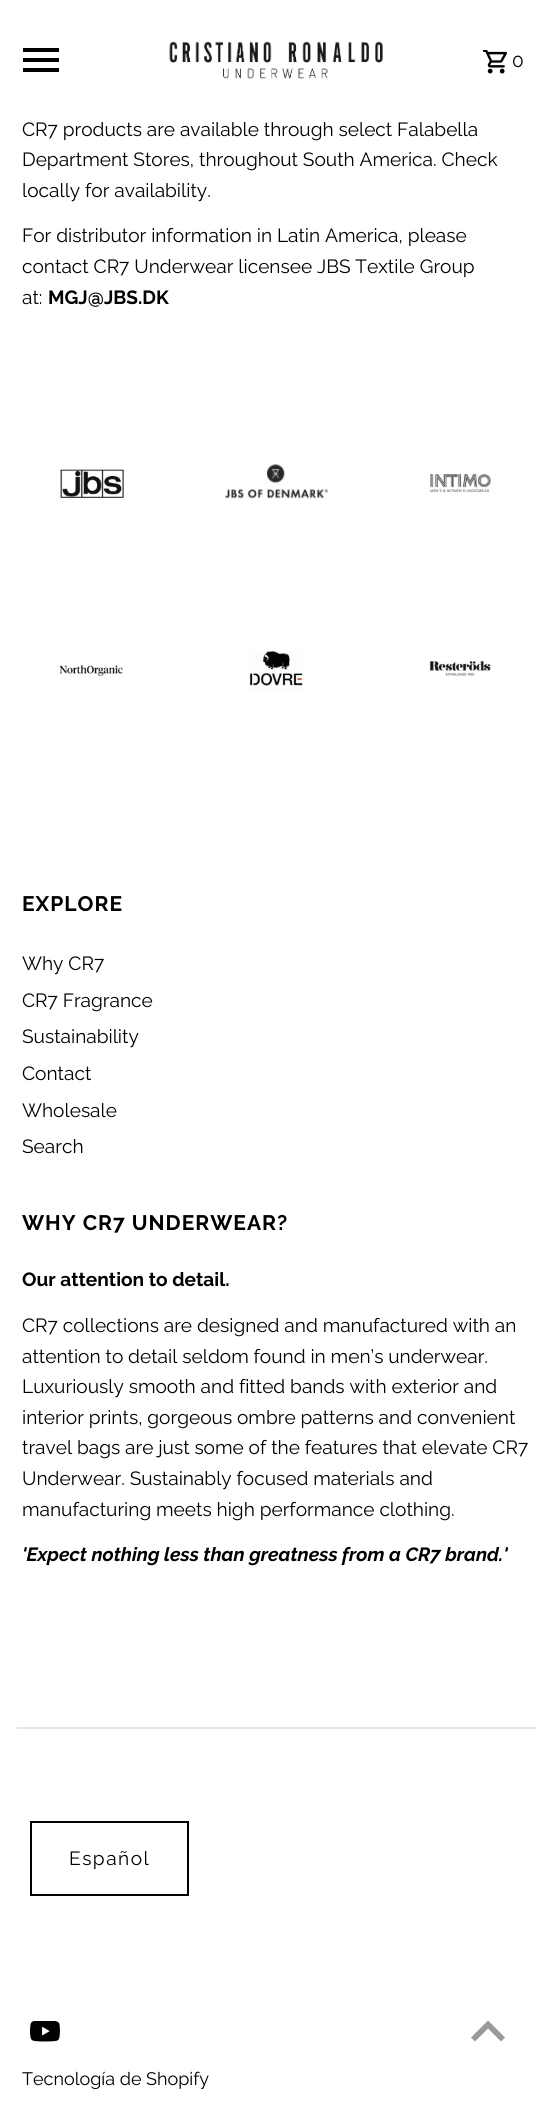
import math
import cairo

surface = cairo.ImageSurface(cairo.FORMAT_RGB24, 552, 2109)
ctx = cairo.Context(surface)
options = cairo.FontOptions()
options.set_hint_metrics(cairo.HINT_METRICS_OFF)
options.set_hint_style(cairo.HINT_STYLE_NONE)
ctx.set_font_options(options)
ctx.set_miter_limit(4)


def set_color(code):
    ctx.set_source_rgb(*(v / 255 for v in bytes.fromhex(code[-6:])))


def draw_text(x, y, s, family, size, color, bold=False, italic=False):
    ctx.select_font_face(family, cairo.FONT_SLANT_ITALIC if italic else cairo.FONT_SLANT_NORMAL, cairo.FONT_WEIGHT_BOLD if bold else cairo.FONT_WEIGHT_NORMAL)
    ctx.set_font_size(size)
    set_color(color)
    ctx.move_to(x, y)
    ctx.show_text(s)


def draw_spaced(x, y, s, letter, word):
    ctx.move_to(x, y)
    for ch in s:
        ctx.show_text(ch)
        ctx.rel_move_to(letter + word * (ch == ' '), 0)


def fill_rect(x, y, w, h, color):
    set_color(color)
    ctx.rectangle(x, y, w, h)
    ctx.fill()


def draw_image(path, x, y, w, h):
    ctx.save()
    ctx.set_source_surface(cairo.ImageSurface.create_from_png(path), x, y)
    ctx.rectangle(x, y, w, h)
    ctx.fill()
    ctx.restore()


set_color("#ffffff")
ctx.paint()
fill_rect(23, 68, 36, 4, "#000000")
fill_rect(23, 58, 36, 4, "#000000")
fill_rect(23, 48, 36, 4, "#000000")
draw_image("assets/img1.png", 169, 41, 214, 38)
draw_image("assets/img2.png", 483, 50, 24, 24)
draw_text(512, 67, "0", "Raleway", 19.1, "#000000")
draw_text(22, 136, "CR7 products are available through select Falabella", "Raleway", 19.1, "#000000")
draw_text(22, 166, "Department Stores, throughout South America. Check", "Raleway", 19.1, "#000000")
draw_text(22, 197, "locally for availability.", "Raleway", 19.1, "#000000")
draw_text(22, 242, "For distributor information in Latin America, please", "Raleway", 19.1, "#000000")
draw_text(22, 273, "contact CR7 Underwear licensee JBS Textile Group", "Raleway", 19.1, "#000000")
draw_text(22, 304, "at:", "Raleway", 19.1, "#000000")
draw_text(48, 304, "MGJ@JBS.DK", "Raleway", 19.1, "#000000", bold=True)
draw_image("assets/img3.png", 60, 469, 64, 30)
draw_image("assets/img4.png", 225, 464, 103, 35)
draw_image("assets/img5.png", 430, 474, 61, 19)
draw_image("assets/img6.png", 59, 665, 64, 11)
draw_image("assets/img7.png", 249, 651, 54, 40)
draw_image("assets/img8.png", 429, 661, 62, 15)
ctx.set_font_size(21)
draw_spaced(22, 911, "EXPLORE", 1, 0)
draw_text(22, 970, "Why CR7", "Raleway", 19.1, "#000000")
draw_text(22, 1007, "CR7 Fragrance", "Raleway", 19.1, "#000000")
draw_text(22, 1043, "Sustainability", "Raleway", 19.1, "#000000")
draw_text(22, 1080, "Contact", "Raleway", 19.1, "#000000")
draw_text(22, 1117, "Wholesale", "Raleway", 19.1, "#000000")
draw_text(22, 1153, "Search", "Raleway", 19.1, "#000000")
ctx.select_font_face("Raleway", cairo.FONT_SLANT_NORMAL, cairo.FONT_WEIGHT_BOLD)
ctx.set_font_size(21)
draw_spaced(22, 1230, "WHY CR7 UNDERWEAR?", 1, 0)
draw_text(22, 1286, "Our attention to detail.", "Raleway", 19.1, "#000000", bold=True)
draw_text(22, 1332, "CR7 collections are designed and manufactured with an", "Raleway", 19.1, "#000000")
draw_text(22, 1363, "attention to detail seldom found in men’s underwear.", "Raleway", 19.1, "#000000")
draw_text(22, 1393, "Luxuriously smooth and fitted bands with exterior and", "Raleway", 19.1, "#000000")
draw_text(22, 1424, "interior prints, gorgeous ombre patterns and convenient", "Raleway", 19.1, "#000000")
draw_text(22, 1454, "travel bags are just some of the features that elevate CR7", "Raleway", 19.1, "#000000")
draw_text(22, 1485, "Underwear. Sustainably focused materials and", "Raleway", 19.1, "#000000")
draw_text(22, 1516, "manufacturing meets high performance clothing.", "Raleway", 19.1, "#000000")
draw_text(22, 1561, "'Expect nothing less than greatness from a CR7 brand.'", "Raleway", 19.1, "#000000", bold=True, italic=True)
fill_rect(17, 1727, 519, 2, "#e5e5e5")
ctx.rectangle(31, 1822, 157, 73)
set_color("#000000")
ctx.stroke()
ctx.select_font_face("Raleway")
draw_spaced(69, 1865, "Español", 1.5, 0)
draw_image("assets/img9.png", 30, 2021, 30, 21)
draw_text(22, 2085, "Tecnología de Shopify", "Raleway", 18, "#000000")
set_color("#999999")
ctx.new_path()
ctx.move_to(488, 2020.5)
ctx.line_to(471, 2037.5)
ctx.line_to(475, 2041.5)
ctx.line_to(488, 2028.5)
ctx.line_to(501, 2041.5)
ctx.line_to(505, 2037.5)
ctx.close_path()
ctx.fill()
surface.write_to_png("output.png")
